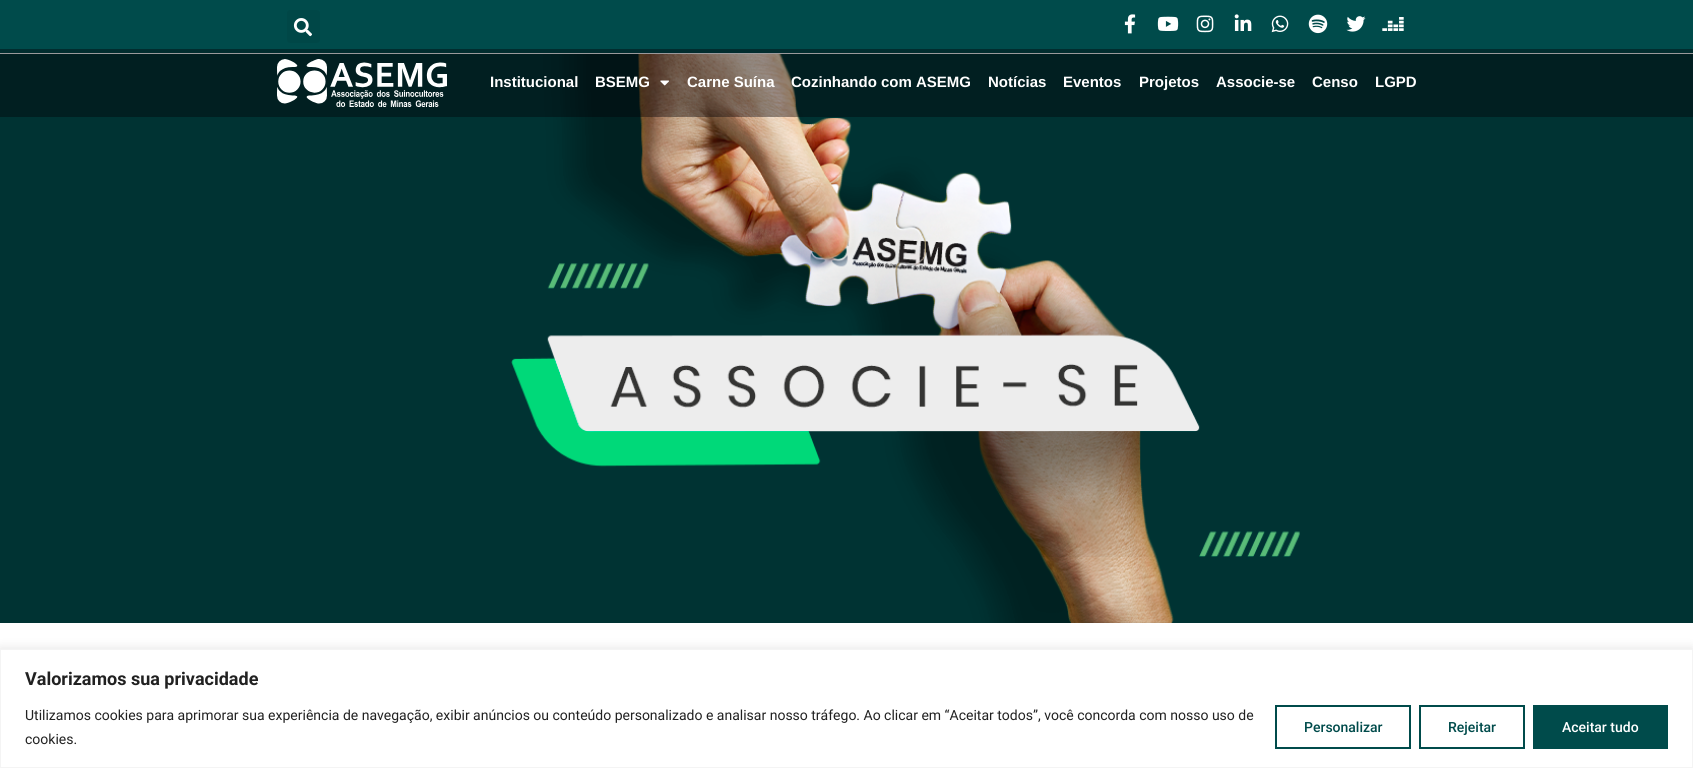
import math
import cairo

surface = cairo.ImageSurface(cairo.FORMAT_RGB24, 1693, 768)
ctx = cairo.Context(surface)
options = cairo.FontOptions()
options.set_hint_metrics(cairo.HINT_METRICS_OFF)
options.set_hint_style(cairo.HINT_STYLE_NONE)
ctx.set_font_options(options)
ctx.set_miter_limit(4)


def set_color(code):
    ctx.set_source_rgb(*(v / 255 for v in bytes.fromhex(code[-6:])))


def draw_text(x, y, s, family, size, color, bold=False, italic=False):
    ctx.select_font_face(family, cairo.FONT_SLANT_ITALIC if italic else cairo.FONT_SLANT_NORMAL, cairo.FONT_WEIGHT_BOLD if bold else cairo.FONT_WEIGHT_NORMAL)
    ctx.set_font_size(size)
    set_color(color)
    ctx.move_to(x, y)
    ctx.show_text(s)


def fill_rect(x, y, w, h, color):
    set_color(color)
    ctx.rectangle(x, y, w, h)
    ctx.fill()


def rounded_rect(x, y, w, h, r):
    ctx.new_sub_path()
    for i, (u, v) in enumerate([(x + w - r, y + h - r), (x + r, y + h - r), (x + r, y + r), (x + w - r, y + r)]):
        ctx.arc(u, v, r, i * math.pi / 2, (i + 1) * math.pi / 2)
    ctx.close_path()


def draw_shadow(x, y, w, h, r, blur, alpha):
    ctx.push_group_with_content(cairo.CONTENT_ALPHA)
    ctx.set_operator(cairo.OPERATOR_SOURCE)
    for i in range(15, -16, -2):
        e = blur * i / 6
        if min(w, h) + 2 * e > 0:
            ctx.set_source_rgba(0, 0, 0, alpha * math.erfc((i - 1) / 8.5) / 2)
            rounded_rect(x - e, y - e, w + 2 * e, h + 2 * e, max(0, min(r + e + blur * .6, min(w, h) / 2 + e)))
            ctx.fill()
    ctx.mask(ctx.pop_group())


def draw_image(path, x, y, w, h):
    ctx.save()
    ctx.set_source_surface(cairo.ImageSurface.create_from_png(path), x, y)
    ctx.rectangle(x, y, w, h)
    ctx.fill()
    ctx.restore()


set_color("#ffffff")
ctx.paint()
fill_rect(0, 0, 1693, 53, "#004b4b")
set_color("#004747")
rounded_rect(287, 10, 33, 33, 3)
ctx.fill()
draw_image("assets/img1.png", 293, 18, 19, 19)
draw_image("assets/img2.png", 1124, 14, 12, 20)
draw_image("assets/img3.png", 1157, 16, 22, 15)
draw_image("assets/img4.png", 1196, 15, 18, 18)
draw_image("assets/img5.png", 1234, 14, 18, 17)
draw_image("assets/img6.png", 1271, 15, 18, 18)
draw_image("assets/img7.png", 1308, 14, 20, 20)
draw_image("assets/img8.png", 1346, 16, 20, 16)
draw_image("assets/img9.png", 1382, 17, 22, 14)
draw_image("assets/img10.png", 0, 54, 1693, 569)
ctx.set_source_rgba(0.012, 0.008, 0.02, 0.4)
ctx.rectangle(0, 49, 1693, 68)
ctx.fill()
draw_image("assets/img11.png", 277, 59, 170, 48)
draw_text(490, 87, "Institucional", "Liberation Sans", 15, "#ffffff", bold=True)
draw_text(595, 87, "BSEMG", "Liberation Sans", 15, "#ffffff", bold=True)
draw_image("assets/img12.png", 660, 80, 9, 6)
draw_text(687, 87, "Carne Suína", "Liberation Sans", 15, "#ffffff", bold=True)
draw_text(791, 87, "Cozinhando com ASEMG", "Liberation Sans", 15, "#ffffff", bold=True)
draw_text(988, 87, "Notícias", "Liberation Sans", 15, "#ffffff", bold=True)
draw_text(1063, 87, "Eventos", "Liberation Sans", 15, "#ffffff", bold=True)
draw_text(1139, 87, "Projetos", "Liberation Sans", 15, "#ffffff", bold=True)
draw_text(1216, 87, "Associe-se", "Liberation Sans", 15, "#ffffff", bold=True)
draw_text(1312, 87, "Censo", "Liberation Sans", 15, "#ffffff", bold=True)
draw_text(1375, 87, "LGPD", "Liberation Sans", 15, "#ffffff", bold=True)
set_color("#acabab")
draw_shadow(0, 648, 1693, 119, 0, 5, 0.3)
set_color("#ffffff")
ctx.rectangle(0.5, 649.5, 1692, 118)
ctx.fill_preserve()
set_color("#f4f4f4")
ctx.set_line_width(1)
ctx.stroke()
draw_text(25, 685, "Valorizamos sua privacidade", "Roboto", 18, "#212121", bold=True)
draw_text(25, 720, "Utilizamos cookies para aprimorar sua experiência de navegação, exibir anúncios ou conteúdo personalizado e analisar nosso tráfego. Ao clicar em “Aceitar todos”, você concorda com nosso uso de", "Roboto", 14, "#212121")
draw_text(25, 744, "cookies.", "Roboto", 14, "#212121")
ctx.rectangle(1276, 706, 134, 42)
set_color("#004b4b")
ctx.set_line_width(2)
ctx.stroke()
draw_text(1304, 732, "Personalizar", "Roboto Medium", 14, "#004b4b")
ctx.rectangle(1420, 706, 104, 42)
ctx.stroke()
draw_text(1448, 732, "Rejeitar", "Roboto Medium", 14, "#004b4b")
fill_rect(1533, 705, 135, 44, "#004b4b")
draw_text(1562, 732, "Aceitar tudo", "Roboto Medium", 14, "#ffffff")
surface.write_to_png("output.png")
